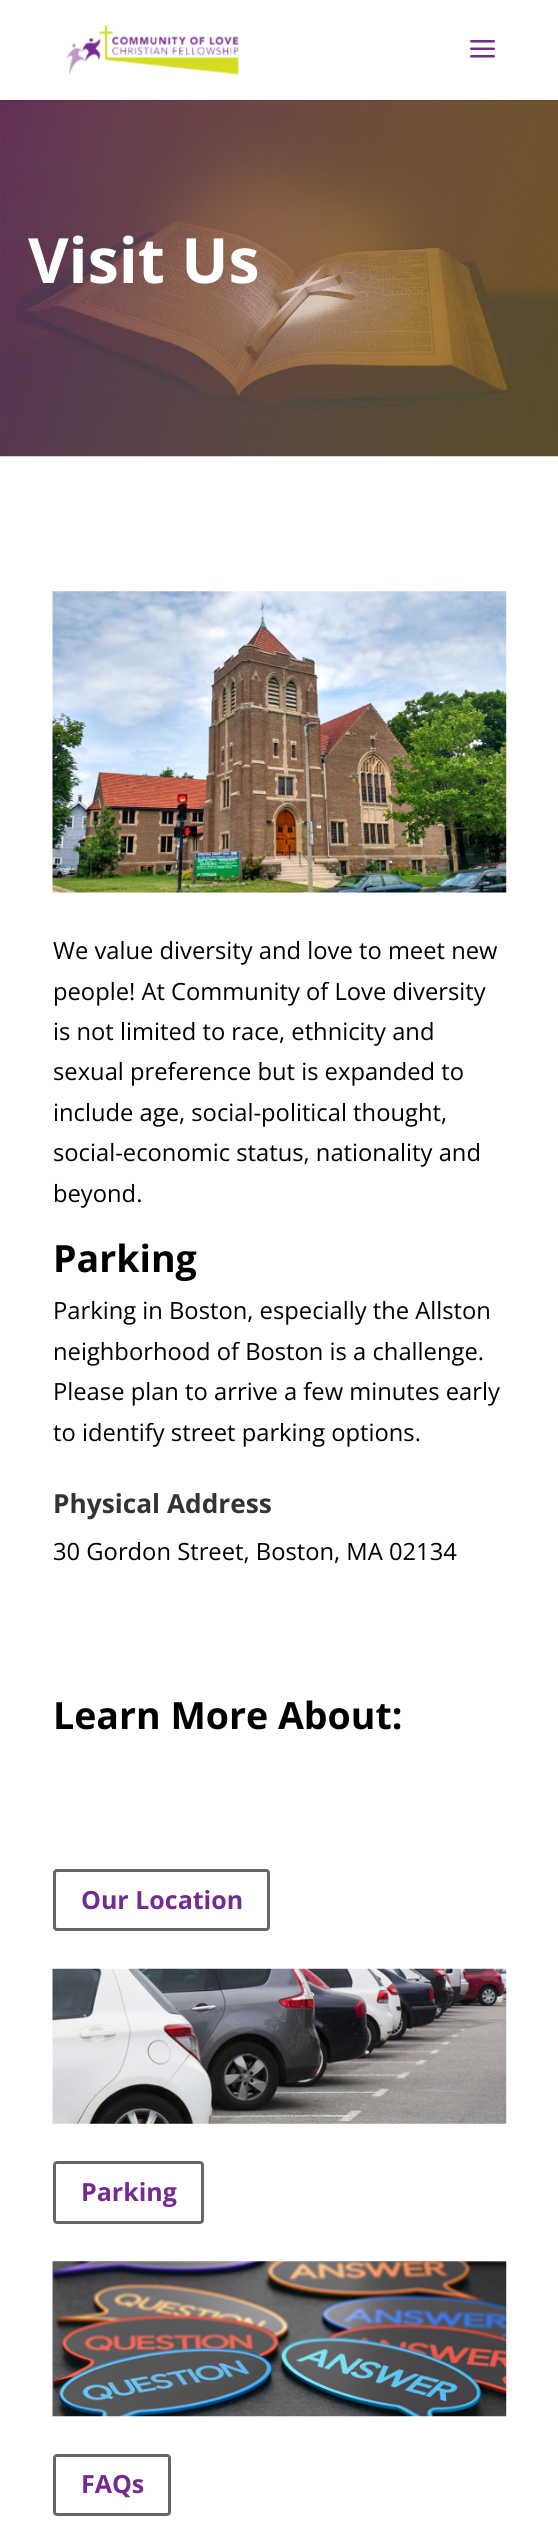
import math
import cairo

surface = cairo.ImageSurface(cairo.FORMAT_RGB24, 558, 2539)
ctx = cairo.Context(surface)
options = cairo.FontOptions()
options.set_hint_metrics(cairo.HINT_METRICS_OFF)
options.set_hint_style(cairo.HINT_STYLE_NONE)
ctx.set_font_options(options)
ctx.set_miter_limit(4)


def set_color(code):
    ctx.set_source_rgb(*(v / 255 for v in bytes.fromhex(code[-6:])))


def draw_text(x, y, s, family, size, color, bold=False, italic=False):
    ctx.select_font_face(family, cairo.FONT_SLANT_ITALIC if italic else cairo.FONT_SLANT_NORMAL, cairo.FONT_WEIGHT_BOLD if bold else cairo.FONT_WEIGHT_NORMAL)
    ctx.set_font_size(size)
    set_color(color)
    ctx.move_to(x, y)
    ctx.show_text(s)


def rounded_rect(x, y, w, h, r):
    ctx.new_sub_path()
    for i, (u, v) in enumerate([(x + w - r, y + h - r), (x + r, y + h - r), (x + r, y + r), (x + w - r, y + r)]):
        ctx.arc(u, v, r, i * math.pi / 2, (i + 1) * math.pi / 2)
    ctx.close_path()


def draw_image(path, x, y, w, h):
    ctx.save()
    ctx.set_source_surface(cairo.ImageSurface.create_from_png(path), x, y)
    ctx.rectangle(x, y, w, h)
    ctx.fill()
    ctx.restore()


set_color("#ffffff")
ctx.paint()
draw_image("assets/img3.png", 0, 100, 558, 357)
ctx.set_source_rgba(0, 0, 0, 0.1)
ctx.new_path()
ctx.move_to(0, 100)
ctx.line_to(0, 101)
ctx.line_to(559, 101)
ctx.line_to(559, 1)
ctx.line_to(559, 100)
ctx.close_path()
ctx.fill()
draw_image("assets/img1.png", 66, 24, 173, 51)
draw_image("assets/img2.png", 470, 40, 25, 18)
draw_text(28, 283, "Visit Us", "Open Sans", 62.5, "#ffffff", bold=True)
draw_image("assets/img4.png", 52, 591, 455, 302)
draw_text(53, 959, "We value diversity and love to meet new", "Open Sans", 23.75, "#000000")
draw_text(53, 1000, "people! At Community of Love diversity", "Open Sans", 23.75, "#000000")
draw_text(53, 1040, "is not limited to race, ethnicity and", "Open Sans", 23.75, "#000000")
draw_text(53, 1080, "sexual preference but is expanded to", "Open Sans", 23.75, "#000000")
draw_text(53, 1121, "include age, social-political thought,", "Open Sans", 23.75, "#000000")
draw_text(53, 1161, "social-economic status, nationality and", "Open Sans", 23.75, "#000000")
draw_text(53, 1202, "beyond.", "Open Sans", 23.75, "#000000")
draw_text(53, 1272, "Parking", "Open Sans", 37.5, "#000000", bold=True)
draw_text(53, 1319, "Parking in Boston, especially the Allston", "Open Sans", 23.75, "#000000")
draw_text(53, 1360, "neighborhood of Boston is a challenge.", "Open Sans", 23.75, "#000000")
draw_text(53, 1400, "Please plan to arrive a few minutes early", "Open Sans", 23.75, "#000000")
draw_text(53, 1441, "to identify street parking options.", "Open Sans", 23.75, "#000000")
draw_text(53, 1513, "Physical Address", "Open Sans", 26.25, "#333333", bold=True)
draw_text(53, 1560, "30 Gordon Street, Boston, MA 02134", "Open Sans", 23.75, "#000000")
draw_text(53, 1729, "Learn More About:", "Open Sans", 37.5, "#000000", bold=True)
rounded_rect(54.5, 1870.5, 214, 59, 2.5)
set_color("#666666")
ctx.set_line_width(3)
ctx.stroke()
draw_text(81, 1909, "Our Location", "Open Sans", 25, "#742a8f", bold=True)
draw_image("assets/img5.png", 52, 1968, 455, 156)
rounded_rect(54.5, 2162.5, 148, 60, 2.5)
set_color("#666666")
ctx.stroke()
draw_text(81, 2201, "Parking", "Open Sans", 25, "#742a8f", bold=True)
draw_image("assets/img6.png", 52, 2261, 455, 156)
rounded_rect(54.5, 2455.5, 115, 59, 2.5)
set_color("#666666")
ctx.stroke()
draw_text(81, 2493, "FAQs", "Open Sans", 25, "#742a8f", bold=True)
surface.write_to_png("output.png")
